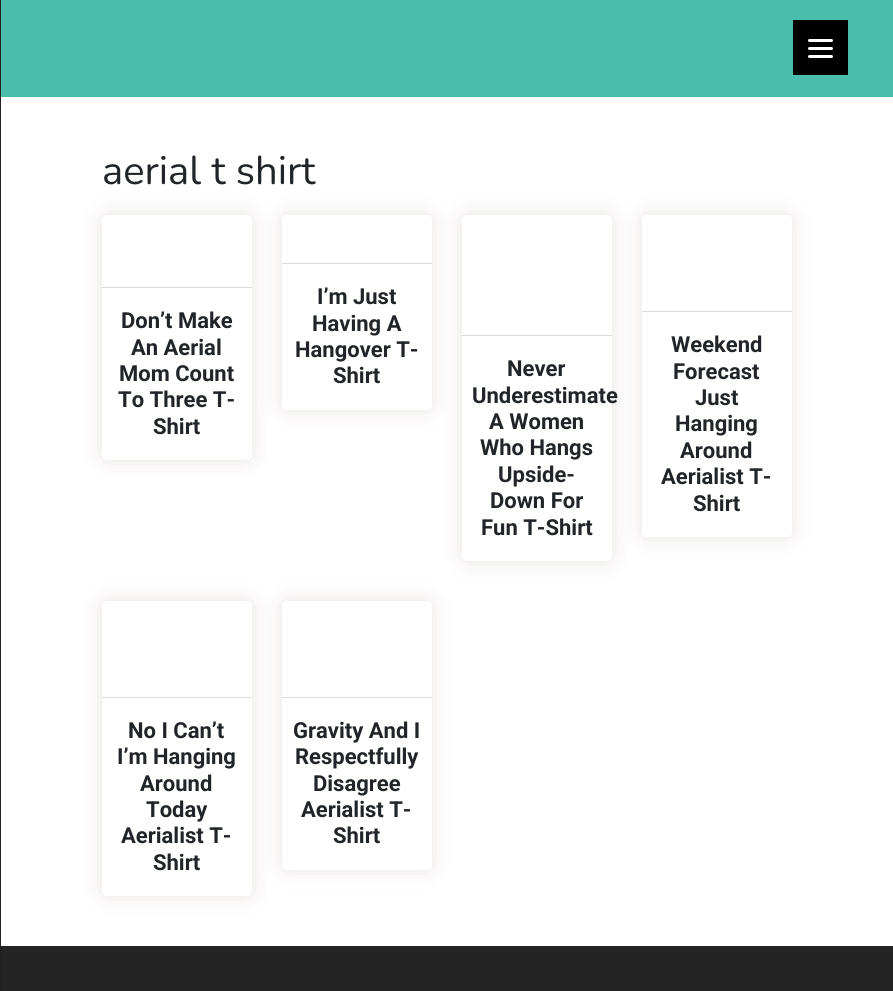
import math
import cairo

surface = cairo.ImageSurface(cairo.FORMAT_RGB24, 893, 991)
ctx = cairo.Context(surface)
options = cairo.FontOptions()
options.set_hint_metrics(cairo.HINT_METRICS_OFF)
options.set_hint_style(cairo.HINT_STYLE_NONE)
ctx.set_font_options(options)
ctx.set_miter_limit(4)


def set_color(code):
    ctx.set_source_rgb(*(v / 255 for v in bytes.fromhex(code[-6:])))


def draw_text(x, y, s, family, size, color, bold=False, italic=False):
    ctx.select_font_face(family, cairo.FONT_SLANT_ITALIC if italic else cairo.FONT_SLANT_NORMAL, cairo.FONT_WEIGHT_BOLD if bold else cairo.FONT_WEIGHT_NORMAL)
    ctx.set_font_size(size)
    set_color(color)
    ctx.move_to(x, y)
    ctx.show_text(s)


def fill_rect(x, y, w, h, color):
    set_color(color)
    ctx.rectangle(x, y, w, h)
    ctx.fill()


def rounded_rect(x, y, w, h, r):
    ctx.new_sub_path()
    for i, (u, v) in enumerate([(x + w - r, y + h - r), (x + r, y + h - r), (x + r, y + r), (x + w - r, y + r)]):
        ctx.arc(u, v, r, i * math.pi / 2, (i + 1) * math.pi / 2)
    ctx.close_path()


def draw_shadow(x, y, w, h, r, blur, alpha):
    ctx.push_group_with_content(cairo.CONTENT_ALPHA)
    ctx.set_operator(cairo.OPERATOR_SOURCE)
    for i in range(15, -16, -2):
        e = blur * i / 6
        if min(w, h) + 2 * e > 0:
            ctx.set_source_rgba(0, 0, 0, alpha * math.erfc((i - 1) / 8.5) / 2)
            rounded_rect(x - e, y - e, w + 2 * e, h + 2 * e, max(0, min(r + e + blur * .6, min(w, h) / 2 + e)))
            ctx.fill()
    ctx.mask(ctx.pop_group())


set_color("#ffffff")
ctx.paint()
fill_rect(0, 0, 1, 991, "#212121")
fill_rect(1, 0, 892, 97, "#4abdac")
fill_rect(793, 20, 55, 55, "#000000")
set_color("#ffffff")
rounded_rect(808, 47, 25, 3, 1.5)
ctx.fill()
rounded_rect(808, 39, 25, 3, 1.5)
ctx.fill()
rounded_rect(808, 55, 25, 3, 1.5)
ctx.fill()
draw_text(102, 184, "aerial t shirt", "Nunito", 40, "#212529")
set_color("#eae2e2")
draw_shadow(102, 215, 150, 245, 5, 10, 1)
set_color("#ffffff")
rounded_rect(102, 215, 150, 245, 5)
ctx.fill()
fill_rect(102, 287, 150, 1, "#dddddd")
draw_text(121, 328, "Don’t Make", "Roboto", 22, "#212529", bold=True)
draw_text(131, 355, "An Aerial", "Roboto", 22, "#212529", bold=True)
draw_text(119, 381, "Mom Count", "Roboto", 22, "#212529", bold=True)
draw_text(118, 407, "To Three T-", "Roboto", 22, "#212529", bold=True)
draw_text(153, 434, "Shirt", "Roboto", 22, "#212529", bold=True)
set_color("#eae2e2")
draw_shadow(282, 215, 150, 195, 5, 10, 1)
set_color("#ffffff")
rounded_rect(282, 215, 150, 195, 5)
ctx.fill()
fill_rect(282, 263, 150, 1, "#dddddd")
draw_text(317, 304, "I’m Just", "Roboto", 22, "#212529", bold=True)
draw_text(312, 331, "Having A", "Roboto", 22, "#212529", bold=True)
draw_text(295, 357, "Hangover T-", "Roboto", 22, "#212529", bold=True)
draw_text(333, 383, "Shirt", "Roboto", 22, "#212529", bold=True)
set_color("#eae2e2")
draw_shadow(462, 215, 150, 346, 5, 10, 1)
set_color("#ffffff")
rounded_rect(462, 215, 150, 346, 5)
ctx.fill()
fill_rect(462, 335, 150, 1, "#dddddd")
draw_text(507, 376, "Never", "Roboto", 22, "#212529", bold=True)
draw_text(472, 403, "Underestimate", "Roboto", 22, "#212529", bold=True)
draw_text(489, 429, "A Women", "Roboto", 22, "#212529", bold=True)
draw_text(480, 455, "Who Hangs", "Roboto", 22, "#212529", bold=True)
draw_text(498, 482, "Upside-", "Roboto", 22, "#212529", bold=True)
draw_text(490, 508, "Down For", "Roboto", 22, "#212529", bold=True)
draw_text(481, 535, "Fun T-Shirt", "Roboto", 22, "#212529", bold=True)
set_color("#eae2e2")
draw_shadow(642, 215, 150, 322, 5, 10, 1)
set_color("#ffffff")
rounded_rect(642, 215, 150, 322, 5)
ctx.fill()
fill_rect(642, 311, 150, 1, "#dddddd")
draw_text(671, 352, "Weekend", "Roboto", 22, "#212529", bold=True)
draw_text(673, 379, "Forecast", "Roboto", 22, "#212529", bold=True)
draw_text(695, 405, "Just", "Roboto", 22, "#212529", bold=True)
draw_text(675, 431, "Hanging", "Roboto", 22, "#212529", bold=True)
draw_text(680, 458, "Around", "Roboto", 22, "#212529", bold=True)
draw_text(661, 484, "Aerialist T-", "Roboto", 22, "#212529", bold=True)
draw_text(693, 511, "Shirt", "Roboto", 22, "#212529", bold=True)
set_color("#eae2e2")
draw_shadow(102, 601, 150, 295, 5, 10, 1)
set_color("#ffffff")
rounded_rect(102, 601, 150, 295, 5)
ctx.fill()
fill_rect(102, 697, 150, 1, "#dddddd")
draw_text(128, 738, "No I Can’t", "Roboto", 22, "#212529", bold=True)
draw_text(117, 764, "I’m Hanging", "Roboto", 22, "#212529", bold=True)
draw_text(140, 791, "Around", "Roboto", 22, "#212529", bold=True)
draw_text(146, 817, "Today", "Roboto", 22, "#212529", bold=True)
draw_text(121, 843, "Aerialist T-", "Roboto", 22, "#212529", bold=True)
draw_text(153, 870, "Shirt", "Roboto", 22, "#212529", bold=True)
set_color("#eae2e2")
draw_shadow(282, 601, 150, 269, 5, 10, 1)
set_color("#ffffff")
rounded_rect(282, 601, 150, 269, 5)
ctx.fill()
fill_rect(282, 697, 150, 1, "#dddddd")
draw_text(293, 738, "Gravity And I", "Roboto", 22, "#212529", bold=True)
draw_text(295, 764, "Respectfully", "Roboto", 22, "#212529", bold=True)
draw_text(313, 791, "Disagree", "Roboto", 22, "#212529", bold=True)
draw_text(301, 817, "Aerialist T-", "Roboto", 22, "#212529", bold=True)
draw_text(333, 843, "Shirt", "Roboto", 22, "#212529", bold=True)
fill_rect(1, 946, 892, 45, "#242424")
surface.write_to_png("output.png")
